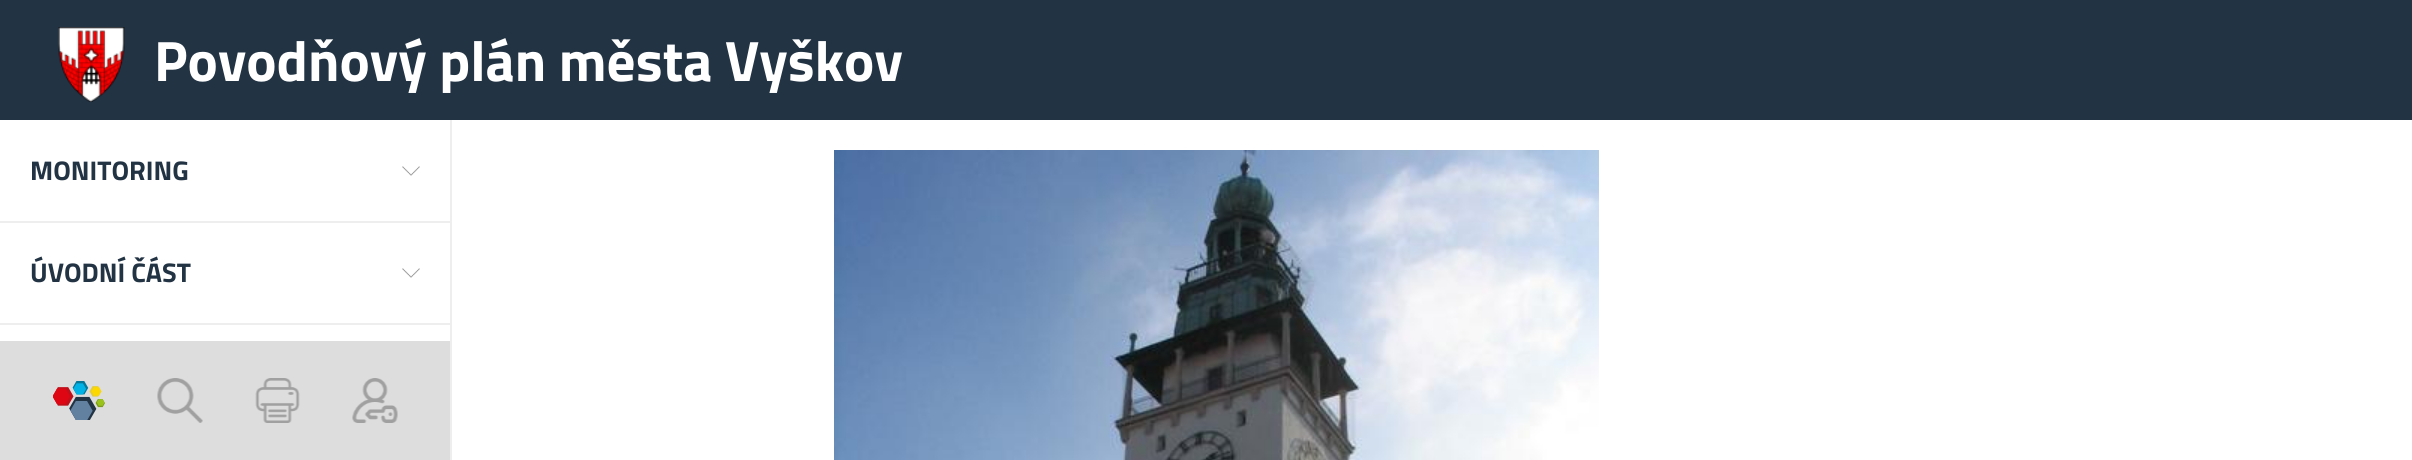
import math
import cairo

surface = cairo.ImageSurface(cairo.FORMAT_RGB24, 2412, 460)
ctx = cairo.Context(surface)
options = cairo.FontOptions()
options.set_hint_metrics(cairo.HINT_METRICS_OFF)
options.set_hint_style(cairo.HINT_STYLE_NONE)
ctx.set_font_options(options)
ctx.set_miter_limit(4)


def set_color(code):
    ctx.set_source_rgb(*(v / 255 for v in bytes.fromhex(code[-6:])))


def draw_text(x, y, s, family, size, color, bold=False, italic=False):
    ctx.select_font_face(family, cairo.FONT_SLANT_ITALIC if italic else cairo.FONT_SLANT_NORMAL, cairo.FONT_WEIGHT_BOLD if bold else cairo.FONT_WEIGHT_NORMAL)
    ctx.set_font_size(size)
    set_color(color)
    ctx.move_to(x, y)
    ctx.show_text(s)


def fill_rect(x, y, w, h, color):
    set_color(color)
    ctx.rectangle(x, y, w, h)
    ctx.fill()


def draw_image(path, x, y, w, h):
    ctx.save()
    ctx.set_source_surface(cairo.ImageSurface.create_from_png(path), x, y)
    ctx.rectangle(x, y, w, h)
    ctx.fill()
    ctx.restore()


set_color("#ffffff")
ctx.paint()
fill_rect(0, 0, 2412, 120, "#223344")
draw_image("assets/img1.png", 58, 27, 67, 75)
draw_text(154, 81, "Povodňový plán města Vyškov", "Titillium Web", 57, "#ffffff", bold=True)
draw_text(30, 180, "MONITORING", "Titillium Web", 27, "#223344", bold=True)
draw_image("assets/img2.png", 402, 166, 18, 10)
fill_rect(0, 221, 450, 2, "#eeeeee")
draw_text(30, 282, "ÚVODNÍ ČÁST", "Titillium Web", 27, "#223344", bold=True)
draw_image("assets/img2.png", 402, 268, 18, 10)
fill_rect(0, 323, 450, 2, "#eeeeee")
fill_rect(450, 120, 2, 340, "#eeeeee")
draw_image("assets/img3.png", 834, 150, 765, 310)
fill_rect(0, 341, 450, 119, "#dddddd")
draw_image("assets/img4.png", 53, 381, 52, 39)
draw_image("assets/img5.png", 157, 378, 46, 45)
draw_image("assets/img6.png", 255, 378, 45, 45)
draw_image("assets/img7.png", 352, 378, 46, 45)
surface.write_to_png("output.png")
